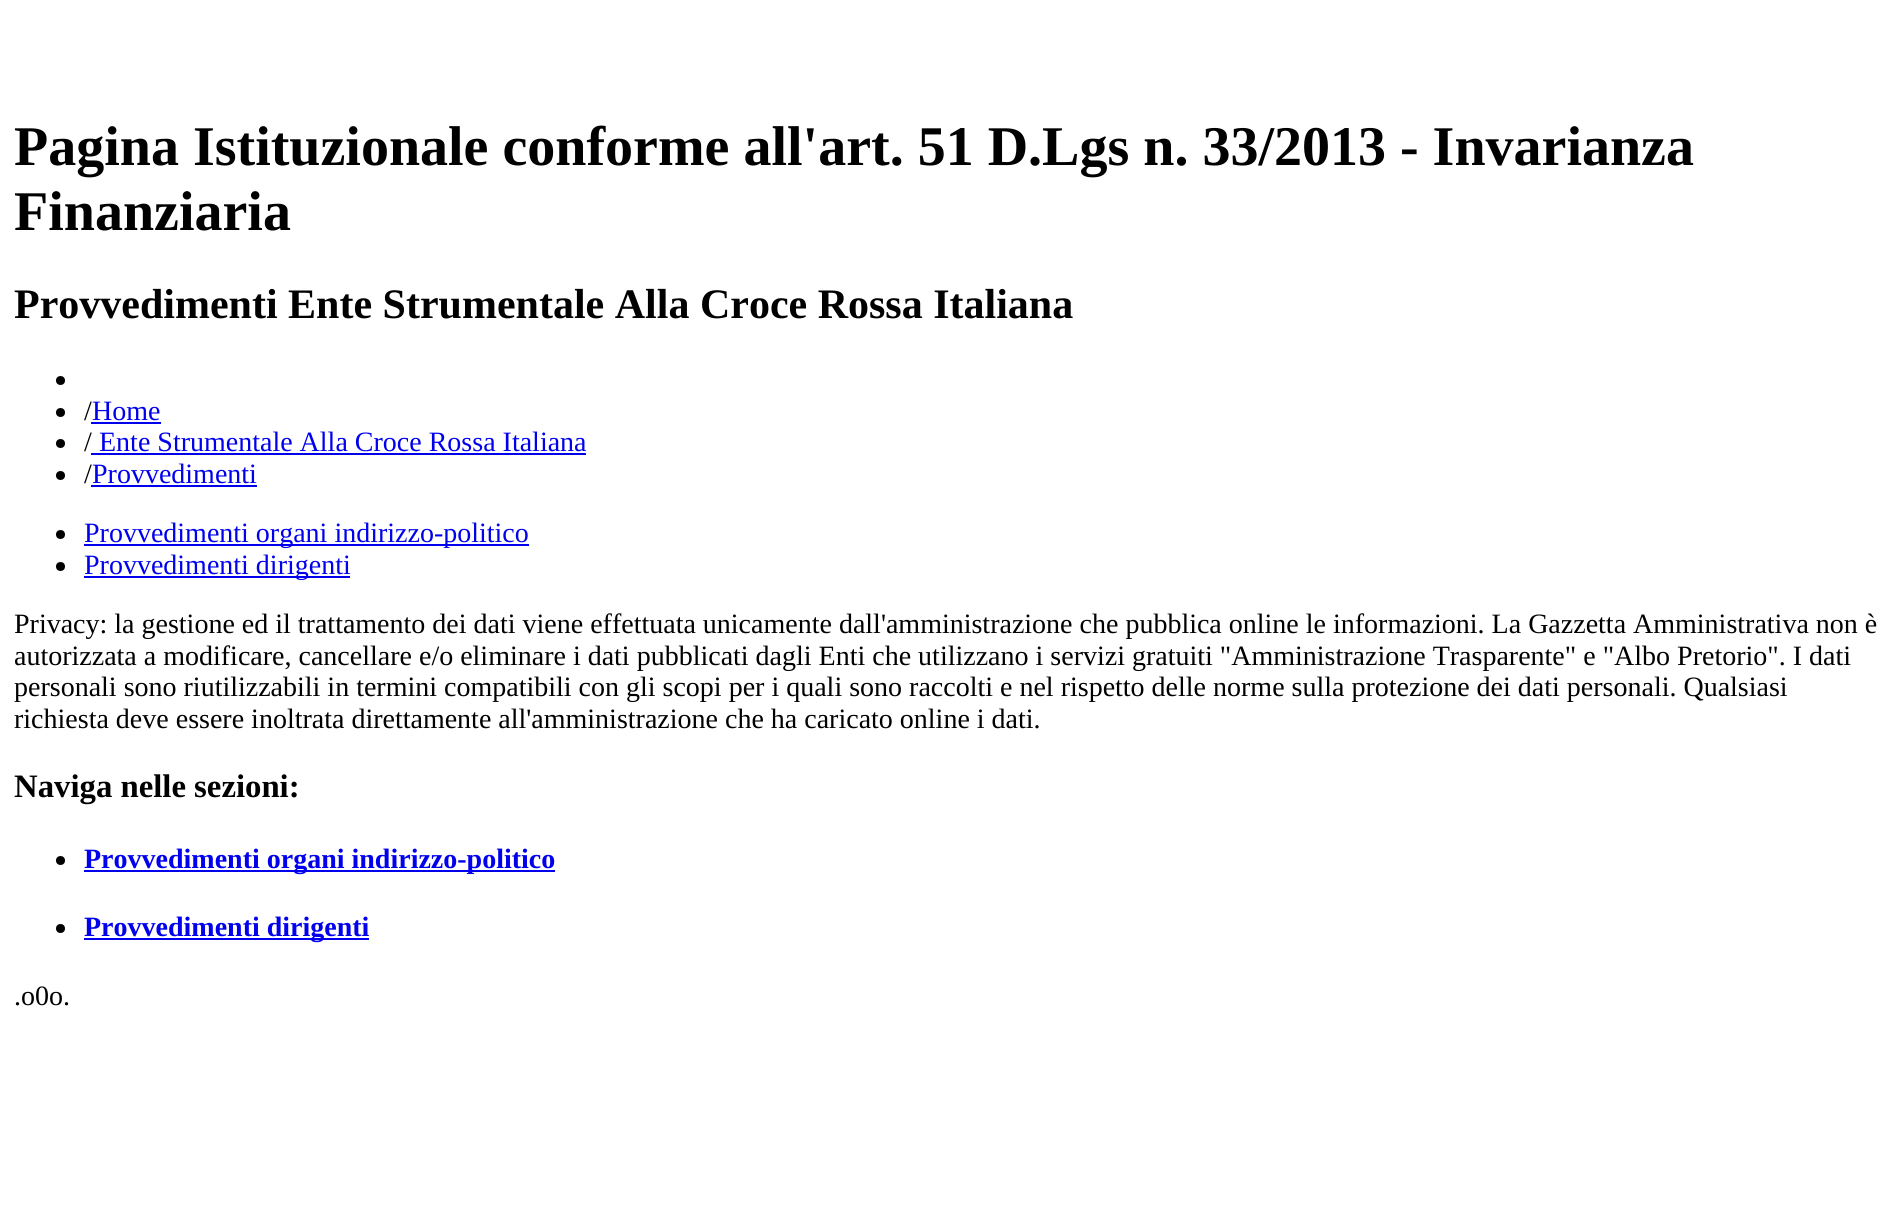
import math
import cairo

surface = cairo.ImageSurface(cairo.FORMAT_RGB24, 1894, 1217)
ctx = cairo.Context(surface)
options = cairo.FontOptions()
options.set_hint_metrics(cairo.HINT_METRICS_OFF)
options.set_hint_style(cairo.HINT_STYLE_NONE)
ctx.set_font_options(options)
ctx.set_miter_limit(4)


def set_color(code):
    ctx.set_source_rgb(*(v / 255 for v in bytes.fromhex(code[-6:])))


def draw_text(x, y, s, family, size, color, bold=False, italic=False):
    ctx.select_font_face(family, cairo.FONT_SLANT_ITALIC if italic else cairo.FONT_SLANT_NORMAL, cairo.FONT_WEIGHT_BOLD if bold else cairo.FONT_WEIGHT_NORMAL)
    ctx.set_font_size(size)
    set_color(color)
    ctx.move_to(x, y)
    ctx.show_text(s)


def fill_rect(x, y, w, h, color):
    set_color(color)
    ctx.rectangle(x, y, w, h)
    ctx.fill()


set_color("#ffffff")
ctx.paint()
draw_text(14, 165, "Pagina Istituzionale conforme all'art. 51 D.Lgs n. 33/2013 - Invarianza", "Liberation Serif", 56, "#000000", bold=True)
draw_text(14, 230, "Finanziaria", "Liberation Serif", 56, "#000000", bold=True)
draw_text(14, 318, "Provvedimenti Ente Strumentale Alla Croce Rossa Italiana", "Liberation Serif", 42, "#000000", bold=True)
ctx.new_path()
ctx.arc(60.5, 380.5, 4.5, 0, 2 * math.pi)
ctx.fill()
ctx.arc(60.5, 412.5, 4.5, 0, 2 * math.pi)
ctx.fill()
draw_text(84, 420, "/", "Liberation Serif", 28, "#000000")
draw_text(92, 420, "Home", "Liberation Serif", 28, "#0000ee")
fill_rect(91, 422, 70, 2, "#0000ee")
set_color("#000000")
ctx.new_path()
ctx.arc(60.5, 443.5, 4.5, 0, 2 * math.pi)
ctx.fill()
draw_text(84, 451, "/", "Liberation Serif", 28, "#000000")
draw_text(99, 451, "Ente Strumentale Alla Croce Rossa Italiana", "Liberation Serif", 28, "#0000ee")
fill_rect(91, 453, 495, 2, "#0000ee")
set_color("#000000")
ctx.new_path()
ctx.arc(60.5, 475.5, 4.5, 0, 2 * math.pi)
ctx.fill()
draw_text(84, 483, "/", "Liberation Serif", 28, "#000000")
draw_text(92, 483, "Provvedimenti", "Liberation Serif", 28, "#0000ee")
fill_rect(91, 485, 166, 2, "#0000ee")
set_color("#000000")
ctx.new_path()
ctx.arc(60.5, 534.5, 4.5, 0, 2 * math.pi)
ctx.fill()
fill_rect(84, 544, 445, 2, "#0000ee")
draw_text(84, 542, "Provvedimenti organi indirizzo-politico", "Liberation Serif", 28, "#0000ee")
set_color("#000000")
ctx.new_path()
ctx.arc(60.5, 566.5, 4.5, 0, 2 * math.pi)
ctx.fill()
fill_rect(84, 576, 266, 2, "#0000ee")
draw_text(84, 574, "Provvedimenti dirigenti", "Liberation Serif", 28, "#0000ee")
draw_text(14, 633, "Privacy: la gestione ed il trattamento dei dati viene effettuata unicamente dall'amministrazione che pubblica online le informazioni. La Gazzetta Amministrativa non è", "Liberation Serif", 28, "#000000")
draw_text(14, 665, "autorizzata a modificare, cancellare e/o eliminare i dati pubblicati dagli Enti che utilizzano i servizi gratuiti \"Amministrazione Trasparente\" e \"Albo Pretorio\". I dati", "Liberation Serif", 28, "#000000")
draw_text(14, 696, "personali sono riutilizzabili in termini compatibili con gli scopi per i quali sono raccolti e nel rispetto delle norme sulla protezione dei dati personali. Qualsiasi", "Liberation Serif", 28, "#000000")
draw_text(14, 728, "richiesta deve essere inoltrata direttamente all'amministrazione che ha caricato online i dati.", "Liberation Serif", 28, "#000000")
draw_text(14, 797, "Naviga nelle sezioni:", "Liberation Serif", 32.75, "#000000", bold=True)
ctx.new_path()
ctx.arc(60.5, 860.5, 4.5, 0, 2 * math.pi)
ctx.fill()
fill_rect(84, 870, 471, 2, "#0000ee")
draw_text(84, 868, "Provvedimenti organi indirizzo-politico", "Liberation Serif", 28, "#0000ee", bold=True)
set_color("#000000")
ctx.new_path()
ctx.arc(60.5, 928.5, 4.5, 0, 2 * math.pi)
ctx.fill()
fill_rect(84, 938, 285, 2, "#0000ee")
draw_text(84, 936, "Provvedimenti dirigenti", "Liberation Serif", 28, "#0000ee", bold=True)
draw_text(14, 1005, ".o0o.", "Liberation Serif", 28, "#000000")
surface.write_to_png("output.png")
